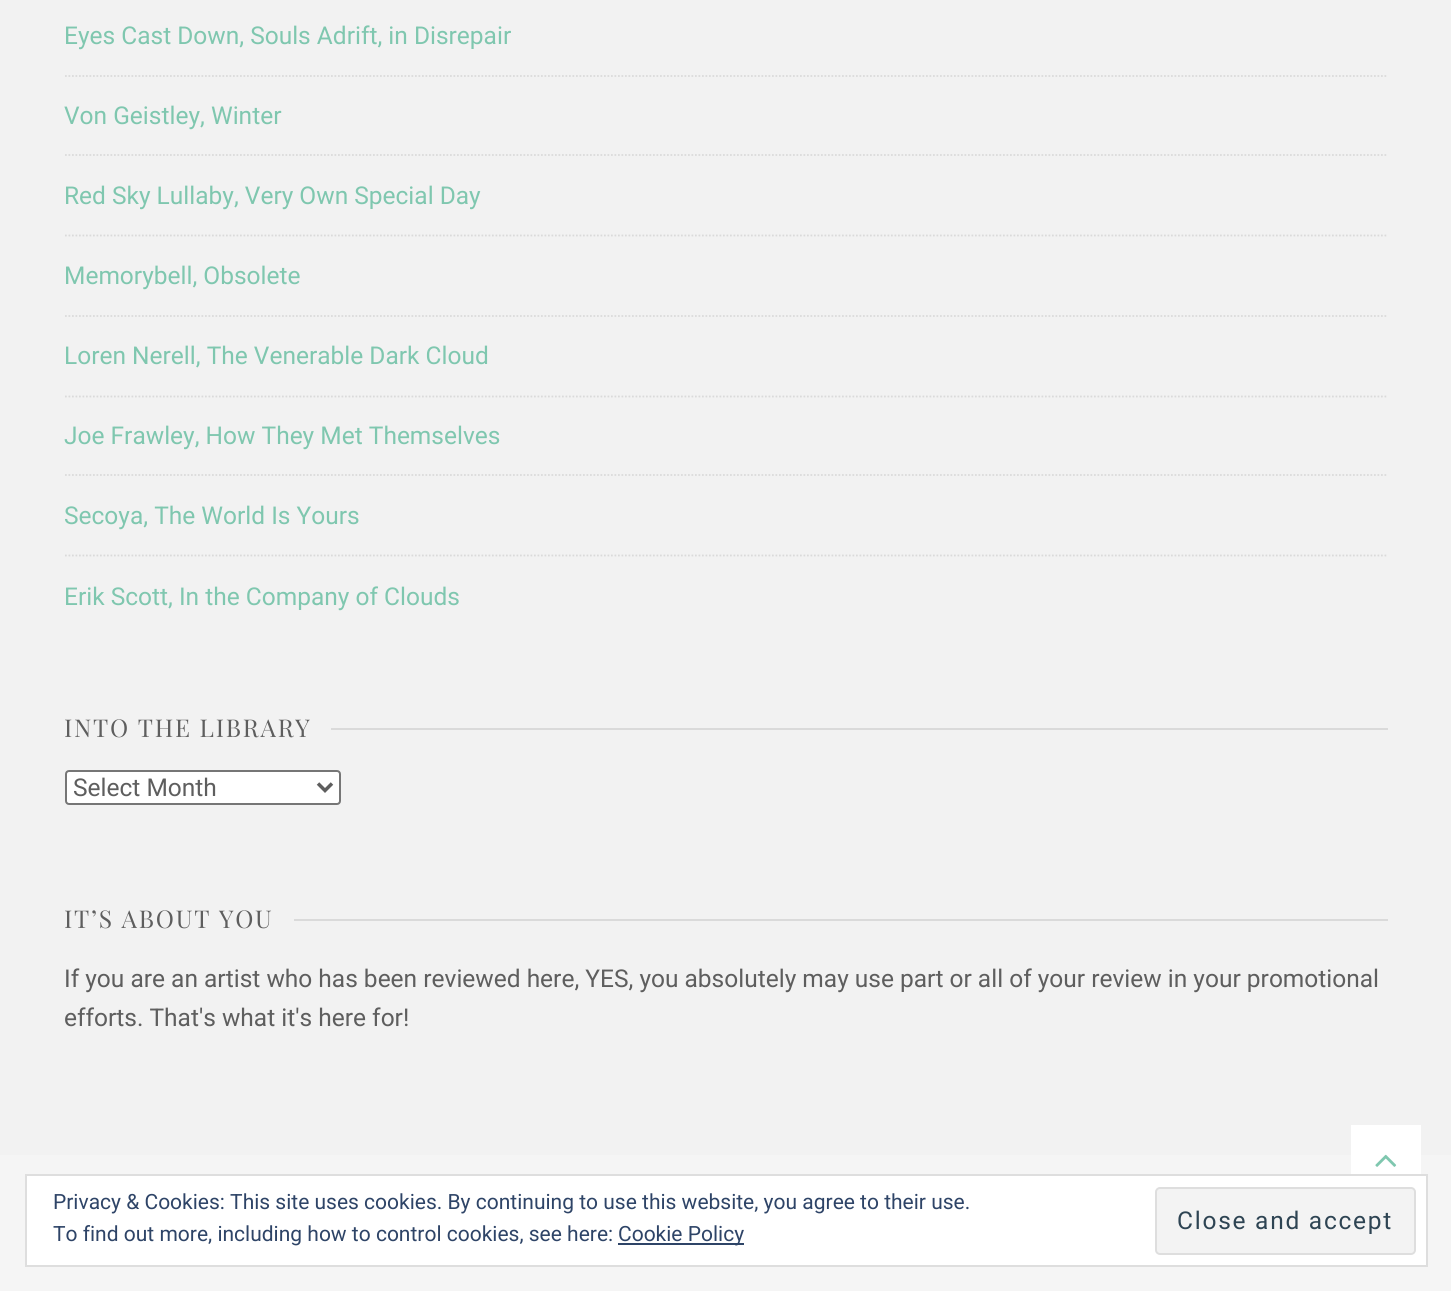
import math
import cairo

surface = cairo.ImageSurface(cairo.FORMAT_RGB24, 1451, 1291)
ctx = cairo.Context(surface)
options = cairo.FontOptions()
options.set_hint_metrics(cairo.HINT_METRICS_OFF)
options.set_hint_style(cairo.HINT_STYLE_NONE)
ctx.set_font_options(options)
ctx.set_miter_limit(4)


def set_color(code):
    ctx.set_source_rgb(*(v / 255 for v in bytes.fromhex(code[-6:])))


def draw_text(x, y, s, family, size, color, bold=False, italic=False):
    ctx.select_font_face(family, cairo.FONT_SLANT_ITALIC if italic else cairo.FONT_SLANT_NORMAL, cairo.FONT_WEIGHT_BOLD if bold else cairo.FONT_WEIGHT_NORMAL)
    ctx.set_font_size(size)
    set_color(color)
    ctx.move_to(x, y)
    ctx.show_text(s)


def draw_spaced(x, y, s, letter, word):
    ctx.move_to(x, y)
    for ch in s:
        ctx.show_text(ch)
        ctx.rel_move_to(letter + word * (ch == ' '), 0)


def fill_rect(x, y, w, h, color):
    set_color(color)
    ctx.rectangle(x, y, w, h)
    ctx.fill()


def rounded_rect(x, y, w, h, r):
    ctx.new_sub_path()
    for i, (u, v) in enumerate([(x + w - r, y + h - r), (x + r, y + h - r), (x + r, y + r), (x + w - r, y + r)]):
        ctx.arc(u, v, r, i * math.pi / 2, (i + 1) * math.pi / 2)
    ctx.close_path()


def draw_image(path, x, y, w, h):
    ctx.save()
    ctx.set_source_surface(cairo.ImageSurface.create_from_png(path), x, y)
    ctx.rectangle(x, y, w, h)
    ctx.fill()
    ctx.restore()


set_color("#f2f2f2")
ctx.paint()
draw_text(64, 44, "Eyes Cast Down, Souls Adrift, in Disrepair", "Roboto", 24.5, "#7fc7af")
ctx.new_path()
ctx.move_to(65, 76)
ctx.line_to(1388, 76)
set_color("#dadada")
ctx.set_line_width(1.8)
ctx.set_dash([1.75, 1.75])
ctx.stroke()
draw_text(64, 124, "Von Geistley, Winter", "Roboto", 24.5, "#7fc7af")
ctx.new_path()
ctx.move_to(65, 155)
ctx.line_to(1388, 155)
set_color("#dadada")
ctx.stroke()
draw_text(64, 204, "Red Sky Lullaby, Very Own Special Day", "Roboto", 24.5, "#7fc7af")
ctx.new_path()
ctx.move_to(65, 235.5)
ctx.line_to(1388, 235.5)
set_color("#dadada")
ctx.stroke()
draw_text(64, 284, "Memorybell, Obsolete", "Roboto", 24.5, "#7fc7af")
ctx.new_path()
ctx.move_to(65, 316)
ctx.line_to(1388, 316)
set_color("#dadada")
ctx.stroke()
draw_text(64, 364, "Loren Nerell, The Venerable Dark Cloud", "Roboto", 24.5, "#7fc7af")
ctx.new_path()
ctx.move_to(65, 396.5)
ctx.line_to(1388, 396.5)
set_color("#dadada")
ctx.stroke()
draw_text(64, 444, "Joe Frawley, How They Met Themselves", "Roboto", 24.5, "#7fc7af")
ctx.new_path()
ctx.move_to(65, 475)
ctx.line_to(1388, 475)
set_color("#dadada")
ctx.stroke()
draw_text(64, 524, "Secoya, The World Is Yours", "Roboto", 24.5, "#7fc7af")
ctx.new_path()
ctx.move_to(65, 555.5)
ctx.line_to(1388, 555.5)
set_color("#dadada")
ctx.stroke()
draw_text(64, 605, "Erik Scott, In the Company of Clouds", "Roboto", 24.5, "#7fc7af")
ctx.select_font_face("Playfair Display")
set_color("#5e5e5e")
draw_spaced(64, 737, "INTO THE LIBRARY", 1.75, 0)
fill_rect(331, 728, 1057, 2, "#dadada")
set_color("#ffffff")
rounded_rect(66, 771, 274, 33, 3)
ctx.fill_preserve()
set_color("#767676")
ctx.set_line_width(2)
ctx.set_dash([])
ctx.stroke()
ctx.new_path()
ctx.move_to(318, 783.5)
ctx.line_to(325, 790.5)
ctx.line_to(332, 783.5)
set_color("#5e5e5e")
ctx.set_line_width(3.5)
ctx.stroke()
draw_text(73, 796, "Select Month", "Roboto", 24.5, "#5e5e5e")
ctx.select_font_face("Playfair Display")
draw_spaced(64, 928, "IT’S ABOUT YOU", 1.75, 0)
fill_rect(294, 919, 1094, 2, "#dadada")
draw_text(64, 987, "If you are an artist who has been reviewed here, YES, you absolutely may use part or all of your review in your promotional", "Roboto", 24.5, "#5e5e5e")
draw_text(64, 1026, "efforts. That's what it's here for!", "Roboto", 24.5, "#5e5e5e")
fill_rect(0, 1155, 1451, 136, "#f5f5f5")
fill_rect(1351, 1125, 70, 49, "#ffffff")
draw_image("assets/img1.png", 1375, 1154, 22, 13)
ctx.rectangle(26, 1175, 1401, 91)
ctx.fill_preserve()
set_color("#dedede")
ctx.set_line_width(2)
ctx.stroke()
draw_text(53, 1209, "Privacy & Cookies: This site uses cookies. By continuing to use this website, you agree to their use.", "Roboto", 21, "#2e4467")
draw_text(53, 1241, "To find out more, including how to control cookies, see here:", "Roboto", 21, "#2e4467")
fill_rect(618, 1243, 126, 2, "#2e4467")
draw_text(618, 1241, "Cookie Policy", "Roboto", 21, "#2e4467")
set_color("#f3f3f3")
rounded_rect(1156, 1188, 259, 66, 4)
ctx.fill_preserve()
set_color("#dedede")
ctx.stroke()
ctx.set_font_size(24.5)
set_color("#2e4453")
draw_spaced(1177, 1229, "Close and accept", 1.75, 0)
surface.write_to_png("output.png")
